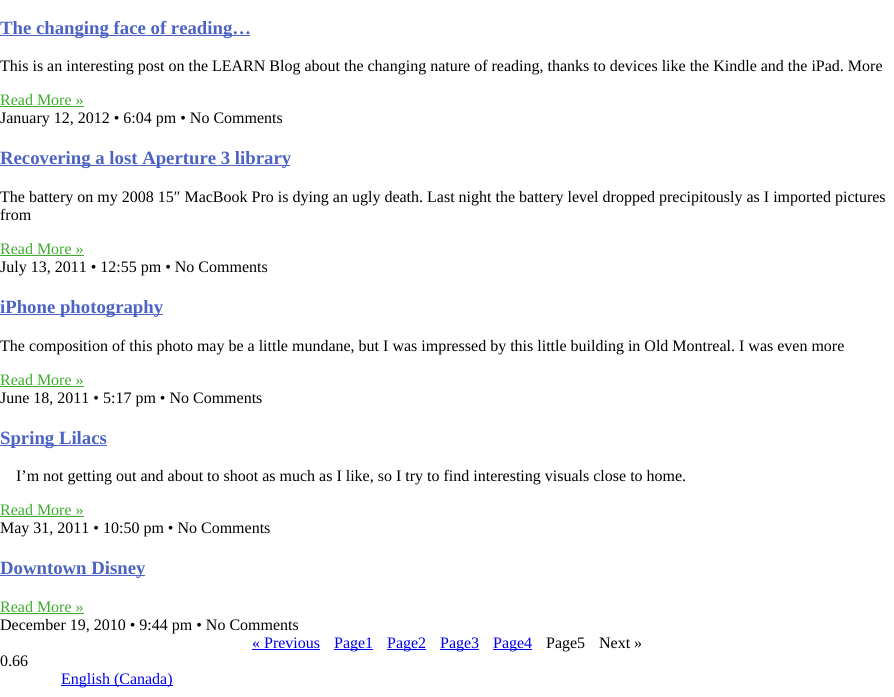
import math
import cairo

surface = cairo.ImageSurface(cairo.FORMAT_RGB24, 894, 697)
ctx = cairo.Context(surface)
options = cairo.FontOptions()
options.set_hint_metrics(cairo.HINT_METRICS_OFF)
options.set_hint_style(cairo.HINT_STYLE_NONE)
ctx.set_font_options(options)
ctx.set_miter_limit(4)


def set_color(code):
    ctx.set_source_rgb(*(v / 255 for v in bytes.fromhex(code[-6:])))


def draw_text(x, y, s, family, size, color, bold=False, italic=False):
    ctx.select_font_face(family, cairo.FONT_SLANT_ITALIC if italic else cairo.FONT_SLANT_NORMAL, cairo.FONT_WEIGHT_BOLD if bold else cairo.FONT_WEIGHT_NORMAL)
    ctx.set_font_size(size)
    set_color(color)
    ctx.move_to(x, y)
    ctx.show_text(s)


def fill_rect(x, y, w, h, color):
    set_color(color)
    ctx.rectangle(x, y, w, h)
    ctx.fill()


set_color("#ffffff")
ctx.paint()
fill_rect(0, 35, 250, 1, "#4c63c4")
draw_text(0, 34, "The changing face of reading…", "Liberation Serif", 18.75, "#4c63c4", bold=True)
draw_text(0, 71, "This is an interesting post on the LEARN Blog about the changing nature of reading, thanks to devices like the Kindle and the iPad. More", "Liberation Serif", 16, "#000000")
draw_text(0, 105, "Read More »", "Liberation Serif", 16, "#3dab2d")
fill_rect(0, 106, 84, 1, "#3dab2d")
draw_text(0, 123, "January 12, 2012 • 6:04 pm • No Comments", "Liberation Serif", 16, "#000000")
fill_rect(0, 165, 290, 1, "#4c63c4")
draw_text(0, 164, "Recovering a lost Aperture 3 library", "Liberation Serif", 18.75, "#4c63c4", bold=True)
draw_text(0, 202, "The battery on my 2008 15″ MacBook Pro is dying an ugly death. Last night the battery level dropped precipitously as I imported pictures", "Liberation Serif", 16, "#000000")
draw_text(0, 220, "from", "Liberation Serif", 16, "#000000")
draw_text(0, 254, "Read More »", "Liberation Serif", 16, "#3dab2d")
fill_rect(0, 255, 84, 1, "#3dab2d")
draw_text(0, 272, "July 13, 2011 • 12:55 pm • No Comments", "Liberation Serif", 16, "#000000")
fill_rect(0, 314, 163, 1, "#4c63c4")
draw_text(0, 313, "iPhone photography", "Liberation Serif", 18.75, "#4c63c4", bold=True)
draw_text(0, 351, "The composition of this photo may be a little mundane, but I was impressed by this little building in Old Montreal. I was even more", "Liberation Serif", 16, "#000000")
draw_text(0, 385, "Read More »", "Liberation Serif", 16, "#3dab2d")
fill_rect(0, 386, 84, 1, "#3dab2d")
draw_text(0, 403, "June 18, 2011 • 5:17 pm • No Comments", "Liberation Serif", 16, "#000000")
fill_rect(0, 445, 107, 1, "#4c63c4")
draw_text(0, 444, "Spring Lilacs", "Liberation Serif", 18.75, "#4c63c4", bold=True)
draw_text(16, 481, "I’m not getting out and about to shoot as much as I like, so I try to find interesting visuals close to home.", "Liberation Serif", 16, "#000000")
draw_text(0, 515, "Read More »", "Liberation Serif", 16, "#3dab2d")
fill_rect(0, 516, 84, 1, "#3dab2d")
draw_text(0, 533, "May 31, 2011 • 10:50 pm • No Comments", "Liberation Serif", 16, "#000000")
fill_rect(0, 575, 145, 1, "#4c63c4")
draw_text(0, 574, "Downtown Disney", "Liberation Serif", 18.75, "#4c63c4", bold=True)
draw_text(0, 612, "Read More »", "Liberation Serif", 16, "#3dab2d")
fill_rect(0, 613, 84, 1, "#3dab2d")
draw_text(0, 630, "December 19, 2010 • 9:44 pm • No Comments", "Liberation Serif", 16, "#000000")
draw_text(252, 648, "« Previous", "Liberation Serif", 16, "#0000ee")
fill_rect(252, 649, 68, 1, "#0000ee")
fill_rect(334, 649, 39, 1, "#0000ee")
draw_text(334, 648, "Page1", "Liberation Serif", 16, "#0000ee")
fill_rect(387, 649, 39, 1, "#0000ee")
draw_text(387, 648, "Page2", "Liberation Serif", 16, "#0000ee")
fill_rect(440, 649, 39, 1, "#0000ee")
draw_text(440, 648, "Page3", "Liberation Serif", 16, "#0000ee")
fill_rect(493, 649, 39, 1, "#0000ee")
draw_text(493, 648, "Page4", "Liberation Serif", 16, "#0000ee")
draw_text(546, 648, "Page5", "Liberation Serif", 16, "#000000")
draw_text(599, 648, "Next »", "Liberation Serif", 16, "#000000")
draw_text(0, 666, "0.66", "Liberation Serif", 16, "#000000")
fill_rect(61, 685, 112, 1, "#0000ee")
draw_text(61, 684, "English (Canada)", "Liberation Serif", 16, "#0000ee")
surface.write_to_png("output.png")
